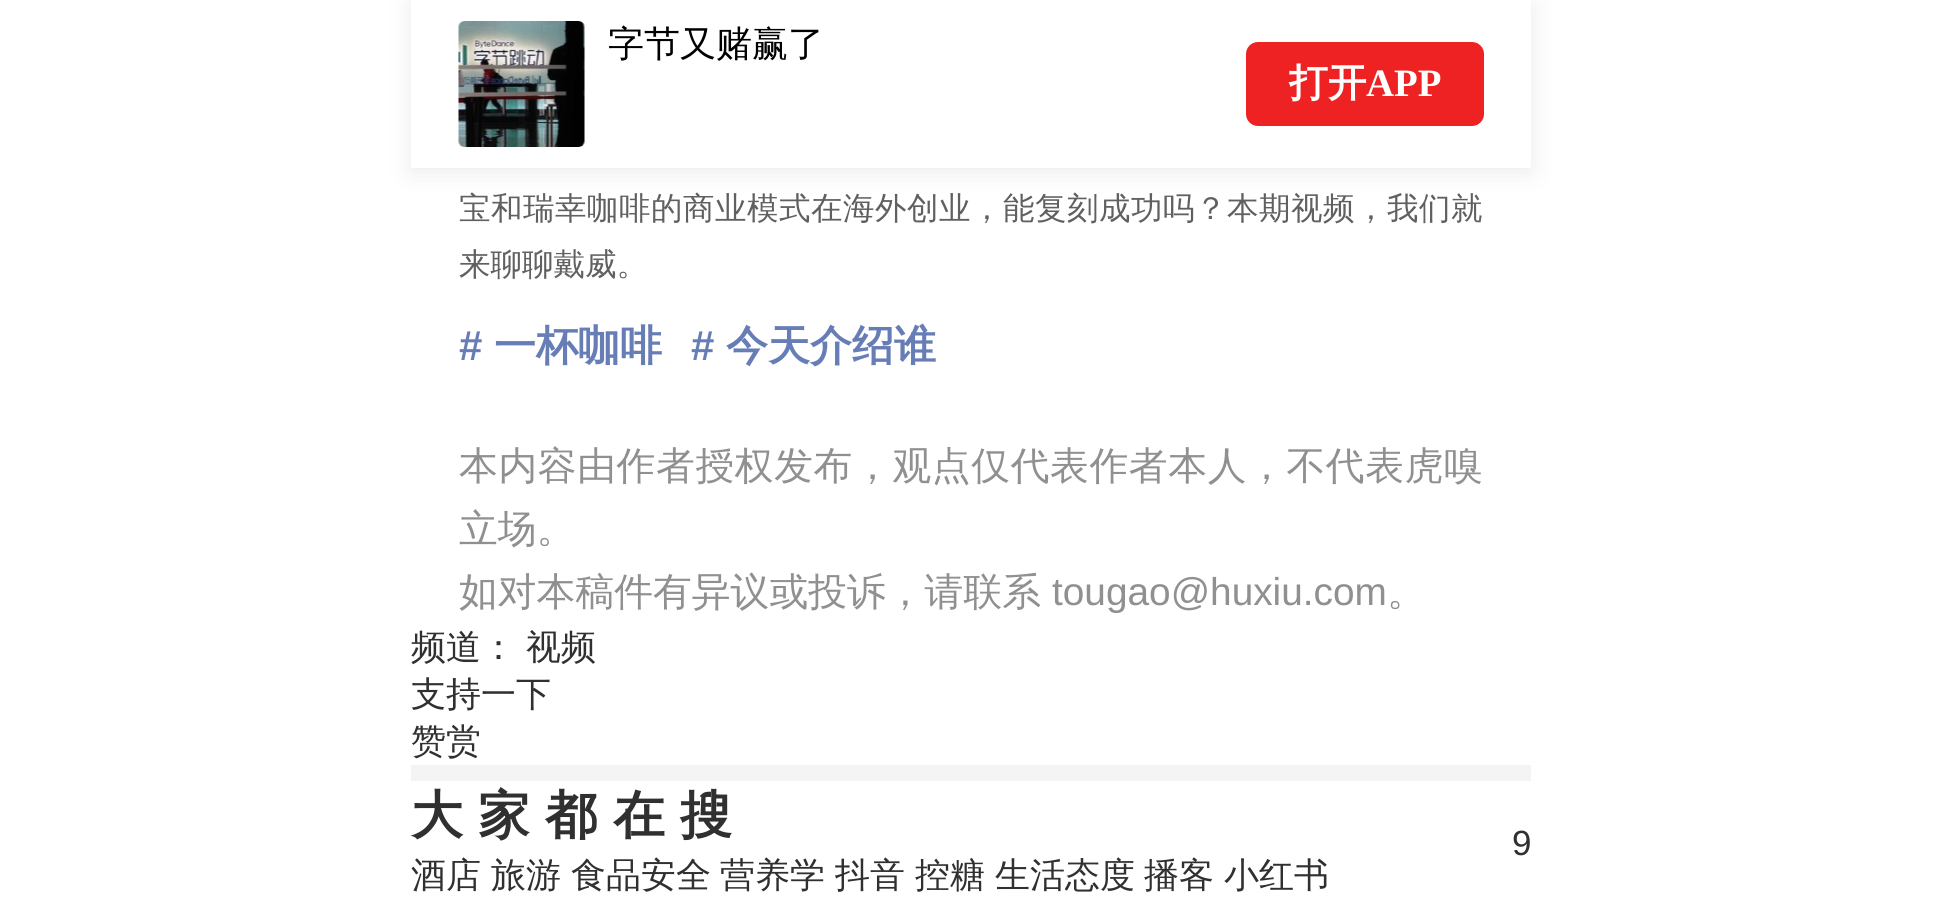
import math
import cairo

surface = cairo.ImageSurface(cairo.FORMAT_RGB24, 1941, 898)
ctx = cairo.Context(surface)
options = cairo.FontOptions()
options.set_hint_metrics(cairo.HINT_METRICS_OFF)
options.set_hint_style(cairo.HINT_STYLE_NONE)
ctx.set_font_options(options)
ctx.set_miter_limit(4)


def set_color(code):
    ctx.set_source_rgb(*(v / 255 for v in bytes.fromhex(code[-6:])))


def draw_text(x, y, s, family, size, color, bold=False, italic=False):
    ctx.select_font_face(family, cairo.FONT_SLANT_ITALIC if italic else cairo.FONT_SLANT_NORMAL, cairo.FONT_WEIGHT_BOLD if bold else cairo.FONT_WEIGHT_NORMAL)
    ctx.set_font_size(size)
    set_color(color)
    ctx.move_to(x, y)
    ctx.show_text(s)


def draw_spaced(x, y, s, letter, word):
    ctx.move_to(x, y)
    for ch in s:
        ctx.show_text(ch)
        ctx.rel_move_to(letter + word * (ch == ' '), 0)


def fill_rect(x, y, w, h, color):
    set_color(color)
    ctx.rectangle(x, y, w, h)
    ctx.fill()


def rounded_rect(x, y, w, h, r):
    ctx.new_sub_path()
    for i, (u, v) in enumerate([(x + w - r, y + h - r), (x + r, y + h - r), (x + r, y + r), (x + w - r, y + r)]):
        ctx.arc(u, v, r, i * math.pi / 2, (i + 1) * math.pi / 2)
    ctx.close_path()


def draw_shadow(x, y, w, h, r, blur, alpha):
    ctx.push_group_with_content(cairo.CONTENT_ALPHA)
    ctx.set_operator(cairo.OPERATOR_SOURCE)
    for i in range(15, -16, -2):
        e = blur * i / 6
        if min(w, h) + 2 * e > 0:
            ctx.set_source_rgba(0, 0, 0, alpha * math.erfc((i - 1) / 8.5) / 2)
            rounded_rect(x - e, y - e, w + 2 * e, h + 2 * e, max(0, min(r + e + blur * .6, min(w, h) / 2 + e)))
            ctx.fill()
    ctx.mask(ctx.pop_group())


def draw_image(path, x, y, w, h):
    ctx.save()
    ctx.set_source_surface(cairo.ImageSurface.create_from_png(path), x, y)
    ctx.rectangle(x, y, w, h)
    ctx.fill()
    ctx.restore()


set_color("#ffffff")
ctx.paint()
set_color("#303030")
draw_shadow(411, 4, 1120, 168, 0, 12, 0.1)
fill_rect(411, 0, 1120, 168, "#ffffff")
draw_image("assets/img1.png", 458, 21, 127, 126)
draw_text(608, 56, "字节又赌赢了", "WenQuanYi Zen Hei Medium", 36, "#000000")
set_color("#ee2222")
rounded_rect(1246, 42, 238, 84, 12)
ctx.fill()
draw_text(1289, 96, "打开", "WenQuanYi Zen Hei", 38.8, "#ffffff", bold=True)
draw_text(1366, 96, "APP", "Liberation Serif", 38.8, "#ffffff", bold=True)
ctx.select_font_face("WenQuanYi Zen Hei Medium")
ctx.set_font_size(31.5)
set_color("#606060")
draw_spaced(459, 219, "宝和瑞幸咖啡的商业模式在海外创业，能复刻成功吗？本期视频，我们就", 0.5, 0)
draw_text(459, 275, "来聊聊戴威。", "WenQuanYi Zen Hei Medium", 31.5, "#606060")
draw_text(459, 360, "#", "Liberation Sans", 42, "#667db6", bold=True)
draw_text(494, 360, "一杯咖啡", "WenQuanYi Zen Hei", 42, "#667db6", bold=True)
draw_text(691, 360, "#", "Liberation Sans", 42, "#667db6", bold=True)
draw_text(726, 360, "今天介绍谁", "WenQuanYi Zen Hei", 42, "#667db6", bold=True)
ctx.select_font_face("WenQuanYi Zen Hei Medium")
ctx.set_font_size(38.8)
set_color("#909090")
draw_spaced(459, 479, "本内容由作者授权发布，观点仅代表作者本人，不代表虎嗅", 0.6, 0)
draw_text(459, 542, "立场。", "WenQuanYi Zen Hei Medium", 38.8, "#909090")
draw_text(459, 605, "如对本稿件有异议或投诉，请联系", "WenQuanYi Zen Hei Medium", 38.8, "#909090")
draw_text(1052, 605, "tougao@huxiu.com", "Liberation Sans", 38.8, "#909090")
draw_text(1387, 605, "。", "WenQuanYi Zen Hei Medium", 38.8, "#909090")
draw_text(411, 659, "频道：", "WenQuanYi Zen Hei Medium", 35, "#303030")
draw_text(526, 659, "视频", "WenQuanYi Zen Hei Medium", 35, "#303030")
draw_text(411, 706, "支持一下", "WenQuanYi Zen Hei Medium", 35, "#303030")
draw_text(411, 753, "赞赏", "WenQuanYi Zen Hei Medium", 35, "#303030")
draw_text(1512, 855, "9", "Liberation Sans", 35, "#303030")
fill_rect(411, 765, 1120, 16, "#f4f4f4")
draw_text(411, 833, "大", "WenQuanYi Zen Hei", 52, "#303030", bold=True)
draw_text(478, 833, "家", "WenQuanYi Zen Hei", 52, "#303030", bold=True)
draw_text(545, 833, "都", "WenQuanYi Zen Hei", 52, "#303030", bold=True)
draw_text(613, 833, "在", "WenQuanYi Zen Hei", 52, "#303030", bold=True)
draw_text(680, 833, "搜", "WenQuanYi Zen Hei", 52, "#303030", bold=True)
draw_text(411, 887, "酒店", "WenQuanYi Zen Hei Medium", 35, "#303030")
draw_text(491, 887, "旅游", "WenQuanYi Zen Hei Medium", 35, "#303030")
draw_text(571, 887, "食品安全", "WenQuanYi Zen Hei Medium", 35, "#303030")
draw_text(720, 887, "营养学", "WenQuanYi Zen Hei Medium", 35, "#303030")
draw_text(835, 887, "抖音", "WenQuanYi Zen Hei Medium", 35, "#303030")
draw_text(915, 887, "控糖", "WenQuanYi Zen Hei Medium", 35, "#303030")
draw_text(995, 887, "生活态度", "WenQuanYi Zen Hei Medium", 35, "#303030")
draw_text(1144, 887, "播客", "WenQuanYi Zen Hei Medium", 35, "#303030")
draw_text(1224, 887, "小红书", "WenQuanYi Zen Hei Medium", 35, "#303030")
surface.write_to_png("output.png")
